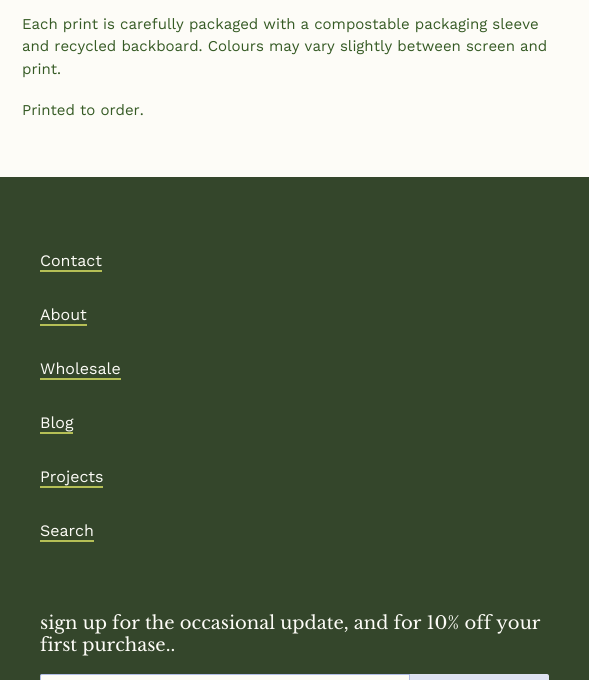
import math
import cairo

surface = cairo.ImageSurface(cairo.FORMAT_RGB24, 589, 680)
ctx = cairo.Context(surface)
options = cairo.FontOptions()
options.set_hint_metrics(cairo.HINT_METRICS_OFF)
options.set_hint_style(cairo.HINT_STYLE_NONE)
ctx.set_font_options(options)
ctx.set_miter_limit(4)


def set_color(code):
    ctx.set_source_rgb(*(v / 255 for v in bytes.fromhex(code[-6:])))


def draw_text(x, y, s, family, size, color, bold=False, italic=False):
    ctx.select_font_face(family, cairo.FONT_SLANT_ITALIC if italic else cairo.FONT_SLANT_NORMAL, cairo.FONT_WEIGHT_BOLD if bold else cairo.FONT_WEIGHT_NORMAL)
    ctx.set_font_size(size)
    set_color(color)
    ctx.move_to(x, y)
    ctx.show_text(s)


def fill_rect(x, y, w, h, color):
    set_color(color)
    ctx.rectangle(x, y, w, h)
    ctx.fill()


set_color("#fdfcf7")
ctx.paint()
draw_text(22, 29, "Each print is carefully packaged with a compostable packaging sleeve", "Work Sans", 15, "#355a24")
draw_text(22, 51, "and recycled backboard. Colours may vary slightly between screen and", "Work Sans", 15, "#355a24")
draw_text(22, 74, "print.", "Work Sans", 15, "#355a24")
draw_text(22, 115, "Printed to order.", "Work Sans", 15, "#355a24")
fill_rect(0, 177, 589, 503, "#34462b")
draw_text(40, 266, "Contact", "Work Sans", 16, "#fdfcf7")
fill_rect(40, 270, 62, 2, "#b5bf56")
draw_text(40, 320, "About", "Work Sans", 16, "#fdfcf7")
fill_rect(40, 324, 47, 2, "#b5bf56")
draw_text(40, 374, "Wholesale", "Work Sans", 16, "#fdfcf7")
fill_rect(40, 378, 81, 2, "#b5bf56")
draw_text(40, 428, "Blog", "Work Sans", 16, "#fdfcf7")
fill_rect(40, 432, 33, 2, "#b5bf56")
draw_text(40, 482, "Projects", "Work Sans", 16, "#fdfcf7")
fill_rect(40, 486, 63, 2, "#b5bf56")
draw_text(40, 536, "Search", "Work Sans", 16, "#fdfcf7")
fill_rect(40, 540, 54, 2, "#b5bf56")
draw_text(40, 629, "sign up for the occasional update, and for 10% off your", "Libre Baskerville", 18, "#fdfcf7")
draw_text(40, 651, "first purchase..", "Libre Baskerville", 18, "#fdfcf7")
ctx.new_path()
ctx.move_to(42, 674.5)
ctx.line_to(409.5, 674.5)
ctx.line_to(409.5, 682.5)
ctx.line_to(42, 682.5)
ctx.curve_to(41, 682.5, 40.5, 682, 40.5, 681)
ctx.line_to(40.5, 676)
ctx.curve_to(40.5, 675, 41, 674.5, 42, 674.5)
ctx.close_path()
ctx.fill_preserve()
set_color("#b2bde6")
ctx.set_line_width(1)
ctx.stroke()
set_color("#dfe3f2")
ctx.new_path()
ctx.move_to(410, 674)
ctx.line_to(547, 674)
ctx.curve_to(548, 674, 549, 675, 549, 676)
ctx.line_to(549, 680)
ctx.curve_to(549, 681, 548, 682, 547, 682)
ctx.line_to(410, 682)
ctx.close_path()
ctx.fill()
surface.write_to_png("output.png")
